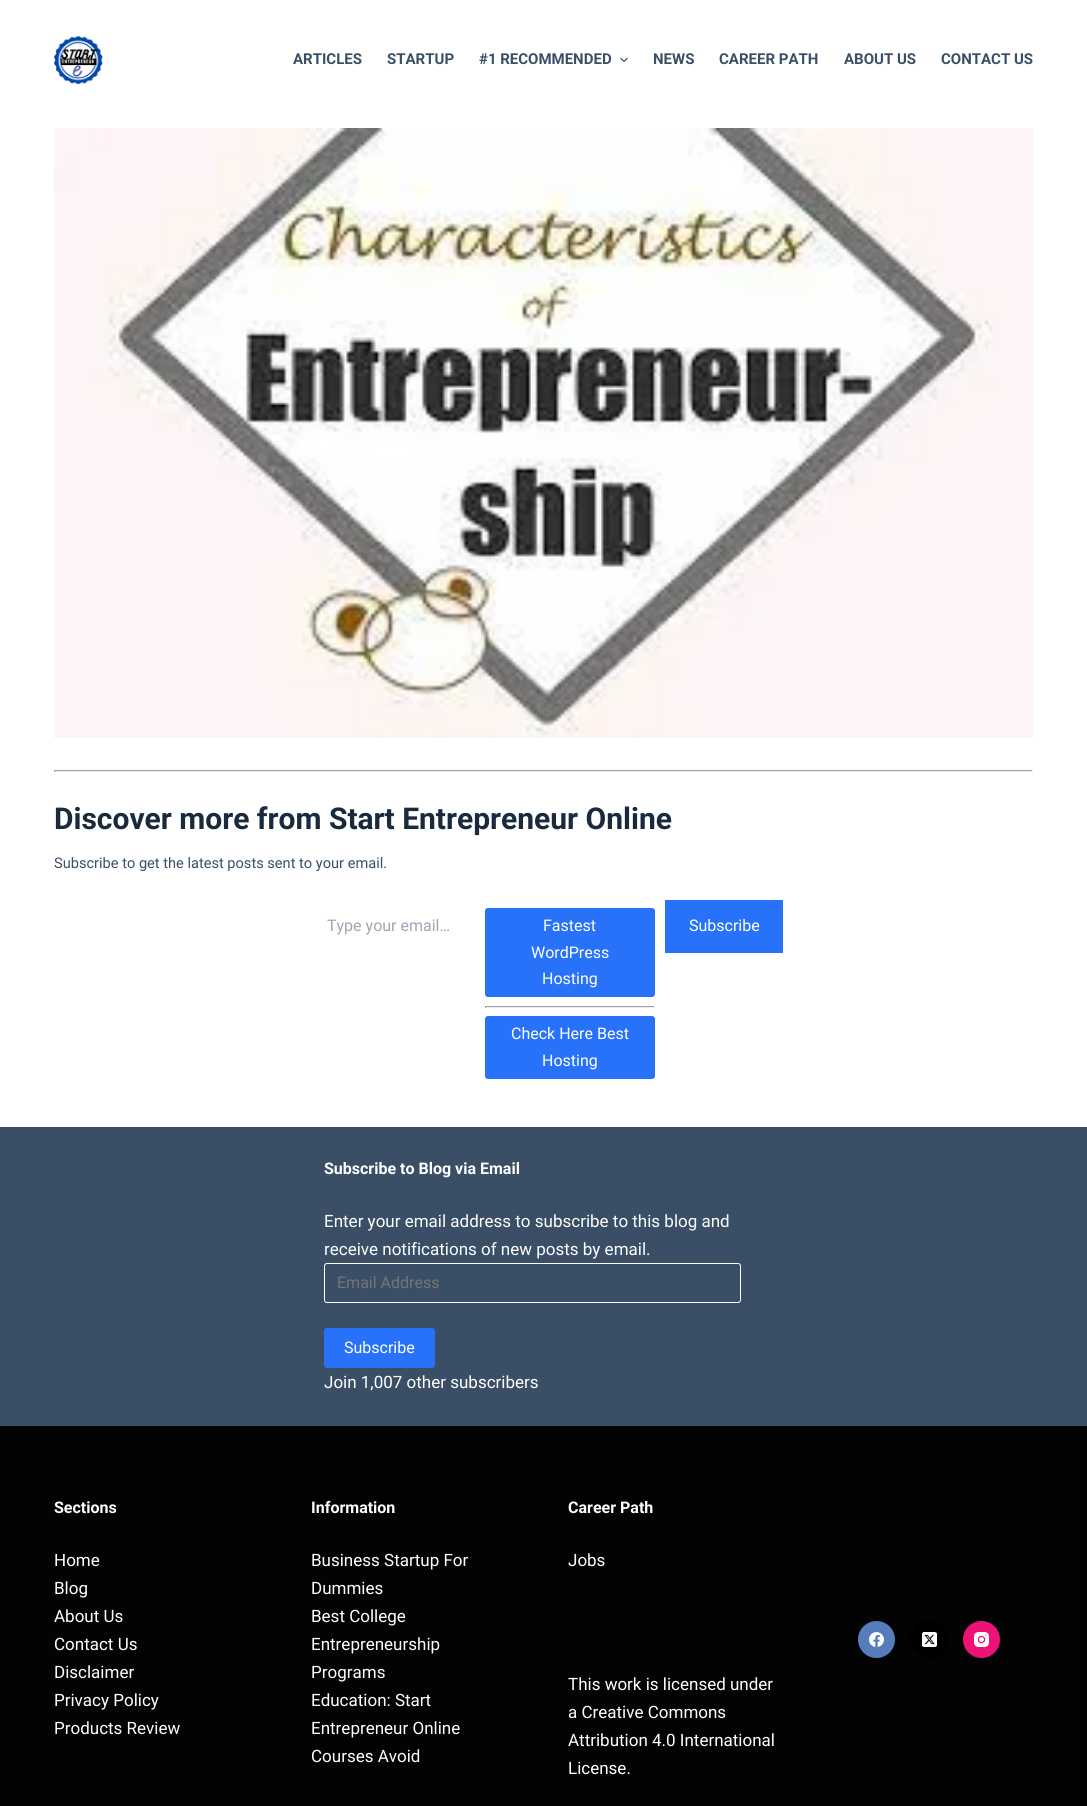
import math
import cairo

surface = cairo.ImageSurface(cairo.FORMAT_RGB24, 1087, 1806)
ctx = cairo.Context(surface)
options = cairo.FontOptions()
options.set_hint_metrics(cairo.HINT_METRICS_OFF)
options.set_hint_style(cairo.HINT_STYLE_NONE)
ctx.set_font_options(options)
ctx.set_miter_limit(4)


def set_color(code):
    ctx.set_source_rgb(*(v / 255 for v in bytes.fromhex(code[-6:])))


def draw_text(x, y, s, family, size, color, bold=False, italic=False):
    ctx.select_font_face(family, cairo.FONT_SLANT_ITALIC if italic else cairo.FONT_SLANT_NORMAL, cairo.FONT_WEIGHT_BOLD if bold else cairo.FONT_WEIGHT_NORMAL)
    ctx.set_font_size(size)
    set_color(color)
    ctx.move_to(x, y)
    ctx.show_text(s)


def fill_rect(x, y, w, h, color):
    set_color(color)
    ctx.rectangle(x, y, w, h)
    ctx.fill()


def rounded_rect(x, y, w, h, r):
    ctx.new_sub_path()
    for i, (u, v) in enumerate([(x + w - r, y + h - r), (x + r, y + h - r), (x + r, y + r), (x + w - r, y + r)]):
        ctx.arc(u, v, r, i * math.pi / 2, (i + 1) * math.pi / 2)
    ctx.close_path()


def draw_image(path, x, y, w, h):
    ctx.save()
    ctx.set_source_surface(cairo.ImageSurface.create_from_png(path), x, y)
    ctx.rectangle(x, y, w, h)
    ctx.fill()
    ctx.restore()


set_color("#ffffff")
ctx.paint()
draw_image("assets/img1.png", 54, 35, 49, 50)
draw_text(293, 64, "ARTICLES", "Roboto", 15, "#3a4f66", bold=True)
draw_text(387, 64, "STARTUP", "Roboto", 15, "#3a4f66", bold=True)
draw_text(479, 64, "#1 RECOMMENDED", "Roboto", 15, "#3a4f66", bold=True)
draw_image("assets/img2.png", 620, 57, 8, 6)
draw_text(653, 64, "NEWS", "Roboto", 15, "#3a4f66", bold=True)
draw_text(719, 64, "CAREER PATH", "Roboto", 15, "#3a4f66", bold=True)
draw_text(844, 64, "ABOUT US", "Roboto", 15, "#3a4f66", bold=True)
draw_text(941, 64, "CONTACT US", "Roboto", 15, "#3a4f66", bold=True)
draw_image("assets/img3.png", 54, 128, 979, 610)
fill_rect(54, 770, 979, 1, "#9f9f9f")
fill_rect(1032, 770, 1, 2, "#eeeeee")
fill_rect(54, 771, 979, 1, "#eeeeee")
fill_rect(54, 770, 1, 2, "#9f9f9f")
draw_text(54, 829, "Discover more from Start Entrepreneur Online", "Roboto", 30, "#192a3d", bold=True)
draw_text(54, 868, "Subscribe to get the latest posts sent to your email.", "Roboto", 14.6, "#3a4f66")
draw_text(327, 931, "Type your email…", "Roboto", 16, "#9da7b3")
set_color("#2872fa")
rounded_rect(485, 908, 170, 89, 3)
ctx.fill()
draw_text(543, 931, "Fastest", "Roboto", 16, "#ffffff")
draw_text(531, 958, "WordPress", "Roboto", 16, "#ffffff")
draw_text(542, 984, "Hosting", "Roboto", 16, "#ffffff")
fill_rect(485, 1006, 170, 1, "#9f9f9f")
fill_rect(654, 1006, 1, 2, "#eeeeee")
fill_rect(485, 1007, 170, 1, "#eeeeee")
fill_rect(485, 1006, 1, 2, "#9f9f9f")
set_color("#2872fa")
rounded_rect(485, 1016, 170, 63, 3)
ctx.fill()
draw_text(511, 1039, "Check Here Best", "Roboto", 16, "#ffffff")
draw_text(542, 1066, "Hosting", "Roboto", 16, "#ffffff")
fill_rect(665, 900, 118, 53, "#2872fa")
draw_text(689, 931, "Subscribe", "Roboto", 16, "#ffffff")
fill_rect(0, 1127, 1087, 299, "#3a4f66")
draw_text(324, 1174, "Subscribe to Blog via Email", "Roboto", 16, "#ffffff", bold=True)
draw_text(324, 1227, "Enter your email address to subscribe to this blog and", "Roboto", 17, "#ffffff")
draw_text(324, 1255, "receive notifications of new posts by email.", "Roboto", 17, "#ffffff")
rounded_rect(324.5, 1263.5, 416, 39, 2.5)
ctx.set_line_width(1)
ctx.stroke()
draw_text(337, 1288, "Email Address", "Roboto", 16, "#757575")
set_color("#2872fa")
rounded_rect(324, 1328, 111, 40, 3)
ctx.fill()
draw_text(344, 1353, "Subscribe", "Roboto", 16, "#ffffff")
draw_text(324, 1388, "Join 1,007 other subscribers", "Roboto", 17, "#ffffff")
fill_rect(0, 1426, 1087, 380, "#030303")
draw_text(54, 1513, "Sections", "Roboto", 16, "#ffffff", bold=True)
draw_text(54, 1566, "Home", "Roboto", 17, "#ffffff")
draw_text(54, 1594, "Blog", "Roboto", 17, "#ffffff")
draw_text(54, 1622, "About Us", "Roboto", 17, "#ffffff")
draw_text(54, 1650, "Contact Us", "Roboto", 17, "#ffffff")
draw_text(54, 1678, "Disclaimer", "Roboto", 17, "#ffffff")
draw_text(54, 1706, "Privacy Policy", "Roboto", 17, "#ffffff")
draw_text(54, 1734, "Products Review", "Roboto", 17, "#ffffff")
draw_text(311, 1513, "Information", "Roboto", 16, "#ffffff", bold=True)
draw_text(311, 1566, "Business Startup For", "Roboto", 17, "#ffffff")
draw_text(311, 1594, "Dummies", "Roboto", 17, "#ffffff")
draw_text(311, 1622, "Best College", "Roboto", 17, "#ffffff")
draw_text(311, 1650, "Entrepreneurship", "Roboto", 17, "#ffffff")
draw_text(311, 1678, "Programs", "Roboto", 17, "#ffffff")
draw_text(311, 1706, "Education: Start", "Roboto", 17, "#ffffff")
draw_text(311, 1734, "Entrepreneur Online", "Roboto", 17, "#ffffff")
draw_text(311, 1762, "Courses Avoid", "Roboto", 17, "#ffffff")
draw_text(568, 1513, "Career Path", "Roboto", 16, "#ffffff", bold=True)
draw_text(568, 1566, "Jobs", "Roboto", 17, "#ffffff")
draw_text(568, 1690, "This work is licensed under", "Roboto", 17, "#ffffff")
draw_text(568, 1718, "a Creative Commons", "Roboto", 17, "#ffffff")
draw_text(568, 1746, "Attribution 4.0 International", "Roboto", 17, "#ffffff")
draw_text(568, 1774, "License.", "Roboto", 17, "#ffffff")
set_color("#557dbc")
ctx.new_path()
ctx.arc(876.5, 1639.5, 18.5, 0, 2 * math.pi)
ctx.fill()
draw_image("assets/img4.png", 869, 1632, 15, 15)
set_color("#000000")
rounded_rect(910, 1621, 38, 37, 18.5)
ctx.fill()
draw_image("assets/img5.png", 922, 1632, 15, 15)
set_color("#ed1376")
ctx.arc(981.5, 1639.5, 18.5, 0, 2 * math.pi)
ctx.fill()
draw_image("assets/img6.png", 974, 1632, 15, 15)
surface.write_to_png("output.png")
